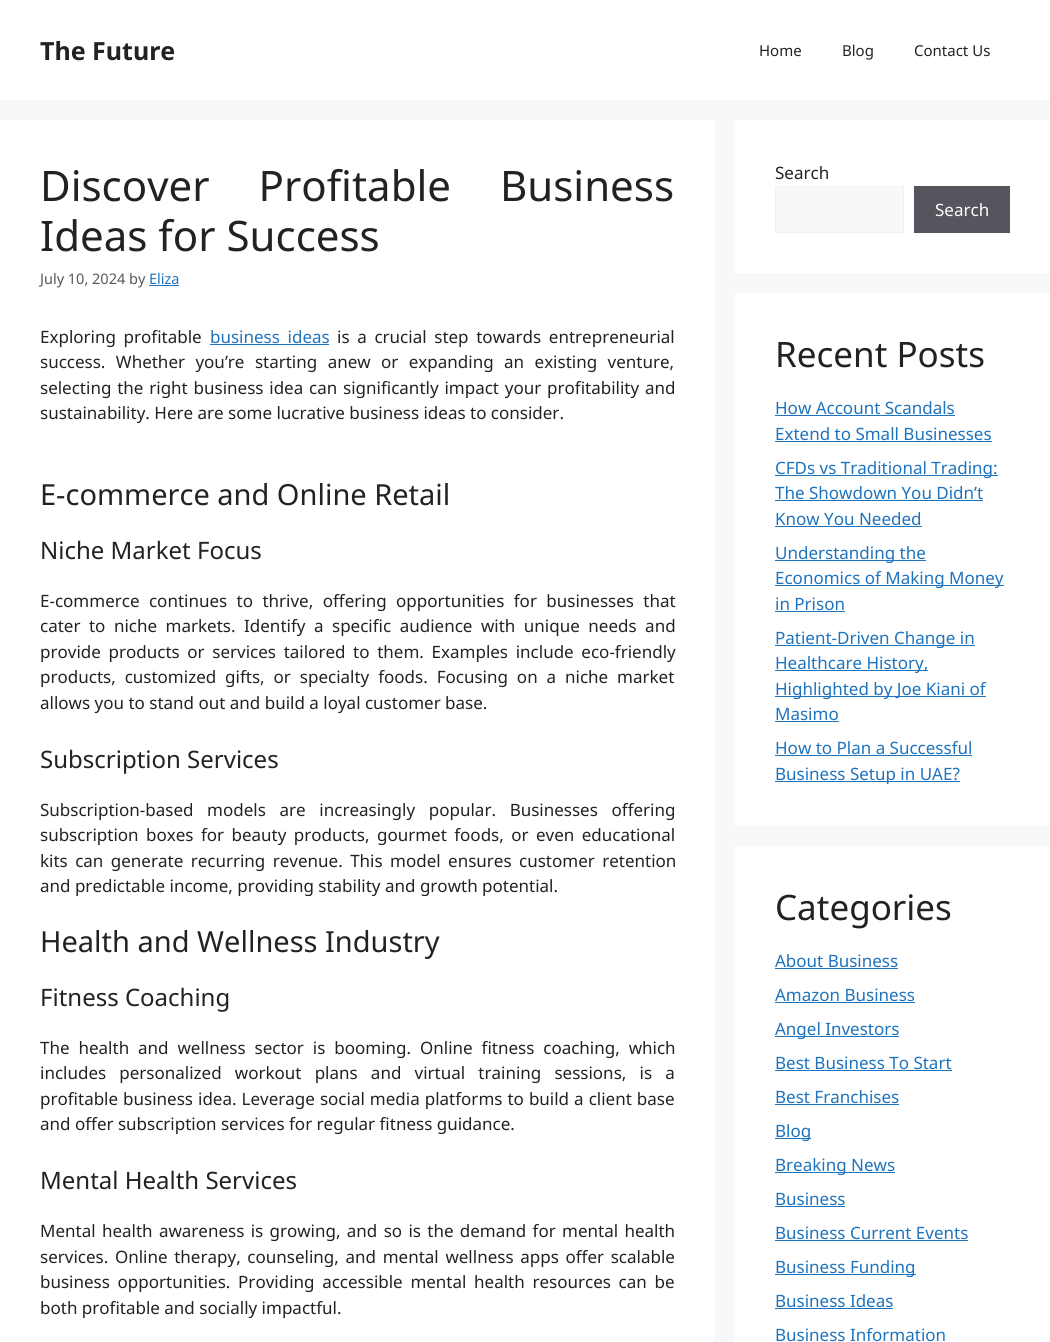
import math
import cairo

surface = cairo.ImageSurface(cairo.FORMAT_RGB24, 1050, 1342)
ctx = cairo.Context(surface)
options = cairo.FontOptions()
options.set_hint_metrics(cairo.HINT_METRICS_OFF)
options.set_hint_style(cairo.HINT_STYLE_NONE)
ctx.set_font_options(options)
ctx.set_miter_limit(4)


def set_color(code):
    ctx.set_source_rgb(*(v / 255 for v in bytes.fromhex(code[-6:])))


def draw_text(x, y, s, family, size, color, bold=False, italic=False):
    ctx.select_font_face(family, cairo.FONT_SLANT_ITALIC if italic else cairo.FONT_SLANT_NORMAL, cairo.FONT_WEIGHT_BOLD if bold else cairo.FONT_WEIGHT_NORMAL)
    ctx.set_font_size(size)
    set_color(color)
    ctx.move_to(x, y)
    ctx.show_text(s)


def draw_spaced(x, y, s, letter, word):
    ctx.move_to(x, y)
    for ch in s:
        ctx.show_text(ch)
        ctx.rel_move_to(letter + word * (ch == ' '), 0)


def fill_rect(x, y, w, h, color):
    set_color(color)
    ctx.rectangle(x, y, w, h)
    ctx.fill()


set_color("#f7f8f9")
ctx.paint()
fill_rect(0, 0, 1050, 100, "#ffffff")
draw_text(40, 60, "The Future", "Noto Sans", 25, "#222222", bold=True)
draw_text(759, 56, "Home", "Noto Sans", 15, "#222222")
draw_text(842, 56, "Blog", "Noto Sans", 15, "#222222")
draw_text(914, 56, "Contact Us", "Noto Sans", 15, "#222222")
fill_rect(0, 120, 715, 1222, "#ffffff")
ctx.set_font_size(42)
set_color("#222222")
draw_spaced(40, 201, "Discover Profitable Business", 0, 38)
draw_text(40, 251, "Ideas for Success", "Noto Sans", 42, "#222222")
draw_text(40, 284, "July 10, 2024 by", "Noto Sans", 14.5, "#575760")
draw_text(149, 284, "Eliza", "Noto Sans", 14.5, "#1e73be")
fill_rect(149, 285, 30, 1, "#1e73be")
ctx.set_font_size(17)
set_color("#222222")
draw_spaced(40, 343, "Exploring profitable", 0, 3.25)
set_color("#1e73be")
draw_spaced(210, 343, "business ideas", 0, 3.25)
fill_rect(210, 344, 119, 1, "#1e73be")
set_color("#222222")
draw_spaced(337, 343, "is a crucial step towards entrepreneurial", 0, 3.25)
draw_spaced(40, 368, "success. Whether you’re starting anew or expanding an existing venture,", 0, 6)
draw_spaced(40, 394, "selecting the right business idea can significantly impact your profitability and", 0, 1.4)
draw_text(40, 419, "sustainability. Here are some lucrative business ideas to consider.", "Noto Sans", 17, "#222222")
draw_text(40, 505, "E-commerce and Online Retail", "Noto Sans", 29, "#222222")
draw_text(40, 559, "Niche Market Focus", "Noto Sans", 24, "#222222")
ctx.set_font_size(17)
draw_spaced(40, 607, "E-commerce continues to thrive, offering opportunities for businesses that", 0, 5)
draw_spaced(40, 632, "cater to niche markets. Identify a specific audience with unique needs and", 0, 4.1)
draw_spaced(40, 658, "provide products or services tailored to them. Examples include eco-friendly", 0, 3.25)
draw_spaced(40, 683, "products, customized gifts, or specialty foods. Focusing on a niche market", 0, 4.5)
draw_text(40, 709, "allows you to stand out and build a loyal customer base.", "Noto Sans", 17, "#222222")
draw_text(40, 768, "Subscription Services", "Noto Sans", 24, "#222222")
ctx.set_font_size(17)
draw_spaced(40, 816, "Subscription-based models are increasingly popular. Businesses offering", 0, 9.25)
draw_spaced(40, 841, "subscription boxes for beauty products, gourmet foods, or even educational", 0, 3)
draw_spaced(40, 867, "kits can generate recurring revenue. This model ensures customer retention", 0, 3)
draw_text(40, 892, "and predictable income, providing stability and growth potential.", "Noto Sans", 17, "#222222")
draw_text(40, 952, "Health and Wellness Industry", "Noto Sans", 29, "#222222")
draw_text(40, 1006, "Fitness Coaching", "Noto Sans", 24, "#222222")
ctx.set_font_size(17)
draw_spaced(40, 1054, "The health and wellness sector is booming. Online fitness coaching, which", 0, 4.5)
draw_spaced(40, 1079, "includes personalized workout plans and virtual training sessions, is a", 0, 8.75)
draw_spaced(40, 1105, "profitable business idea. Leverage social media platforms to build a client base", 0, 0.6)
draw_text(40, 1130, "and offer subscription services for regular fitness guidance.", "Noto Sans", 17, "#222222")
draw_text(40, 1189, "Mental Health Services", "Noto Sans", 24, "#222222")
ctx.set_font_size(17)
draw_spaced(40, 1237, "Mental health awareness is growing, and so is the demand for mental health", 0, 1.9)
draw_spaced(40, 1263, "services. Online therapy, counseling, and mental wellness apps offer scalable", 0, 2.25)
draw_spaced(40, 1288, "business opportunities. Providing accessible mental health resources can be", 0, 3.25)
draw_text(40, 1314, "both profitable and socially impactful.", "Noto Sans", 17, "#222222")
fill_rect(735, 120, 315, 153, "#ffffff")
draw_text(775, 179, "Search", "Noto Sans", 17, "#222222")
set_color("#f7f8f9")
ctx.rectangle(775.5, 186.5, 128, 46)
ctx.fill_preserve()
set_color("#f0f0f0")
ctx.set_line_width(1)
ctx.stroke()
fill_rect(914, 186, 96, 47, "#55555e")
draw_text(935, 216, "Search", "Noto Sans", 17, "#ffffff")
fill_rect(735, 293, 315, 533, "#ffffff")
draw_text(775, 367, "Recent Posts", "Noto Sans", 35, "#222222")
draw_text(775, 414, "How Account Scandals", "Noto Sans", 17, "#1e73be")
fill_rect(775, 415, 180, 1, "#1e73be")
draw_text(775, 440, "Extend to Small Businesses", "Noto Sans", 17, "#1e73be")
fill_rect(775, 441, 217, 1, "#1e73be")
fill_rect(775, 475, 223, 1, "#1e73be")
draw_text(775, 474, "CFDs vs Traditional Trading:", "Noto Sans", 17, "#1e73be")
draw_text(775, 499, "The Showdown You Didn’t", "Noto Sans", 17, "#1e73be")
fill_rect(775, 500, 208, 1, "#1e73be")
draw_text(775, 525, "Know You Needed", "Noto Sans", 17, "#1e73be")
fill_rect(775, 526, 147, 1, "#1e73be")
fill_rect(775, 560, 151, 1, "#1e73be")
draw_text(775, 559, "Understanding the", "Noto Sans", 17, "#1e73be")
fill_rect(775, 585, 229, 1, "#1e73be")
draw_text(775, 584, "Economics of Making Money", "Noto Sans", 17, "#1e73be")
draw_text(775, 610, "in Prison", "Noto Sans", 17, "#1e73be")
fill_rect(775, 611, 70, 1, "#1e73be")
fill_rect(775, 645, 200, 1, "#1e73be")
draw_text(775, 644, "Patient-Driven Change in", "Noto Sans", 17, "#1e73be")
fill_rect(775, 670, 153, 1, "#1e73be")
draw_text(775, 669, "Healthcare History,", "Noto Sans", 17, "#1e73be")
fill_rect(775, 696, 211, 1, "#1e73be")
draw_text(775, 695, "Highlighted by Joe Kiani of", "Noto Sans", 17, "#1e73be")
draw_text(775, 720, "Masimo", "Noto Sans", 17, "#1e73be")
fill_rect(775, 721, 64, 1, "#1e73be")
draw_text(775, 754, "How to Plan a Successful", "Noto Sans", 17, "#1e73be")
fill_rect(775, 755, 197, 1, "#1e73be")
fill_rect(775, 781, 185, 1, "#1e73be")
draw_text(775, 780, "Business Setup in UAE?", "Noto Sans", 17, "#1e73be")
fill_rect(735, 846, 315, 496, "#ffffff")
draw_text(775, 920, "Categories", "Noto Sans", 35, "#222222")
draw_text(775, 967, "About Business", "Noto Sans", 17, "#1e73be")
fill_rect(775, 968, 123, 1, "#1e73be")
draw_text(775, 1001, "Amazon Business", "Noto Sans", 17, "#1e73be")
fill_rect(775, 1002, 140, 1, "#1e73be")
fill_rect(775, 1036, 124, 1, "#1e73be")
draw_text(775, 1035, "Angel Investors", "Noto Sans", 17, "#1e73be")
draw_text(775, 1069, "Best Business To Start", "Noto Sans", 17, "#1e73be")
fill_rect(775, 1070, 177, 1, "#1e73be")
draw_text(775, 1103, "Best Franchises", "Noto Sans", 17, "#1e73be")
fill_rect(775, 1104, 124, 1, "#1e73be")
fill_rect(775, 1138, 36, 1, "#1e73be")
draw_text(775, 1137, "Blog", "Noto Sans", 17, "#1e73be")
fill_rect(775, 1172, 120, 1, "#1e73be")
draw_text(775, 1171, "Breaking News", "Noto Sans", 17, "#1e73be")
draw_text(775, 1205, "Business", "Noto Sans", 17, "#1e73be")
fill_rect(775, 1206, 70, 1, "#1e73be")
draw_text(775, 1239, "Business Current Events", "Noto Sans", 17, "#1e73be")
fill_rect(775, 1240, 193, 1, "#1e73be")
fill_rect(775, 1274, 141, 1, "#1e73be")
draw_text(775, 1273, "Business Funding", "Noto Sans", 17, "#1e73be")
draw_text(775, 1307, "Business Ideas", "Noto Sans", 17, "#1e73be")
fill_rect(775, 1308, 118, 1, "#1e73be")
draw_text(775, 1341, "Business Information", "Noto Sans", 17, "#1e73be")
surface.write_to_png("output.png")
